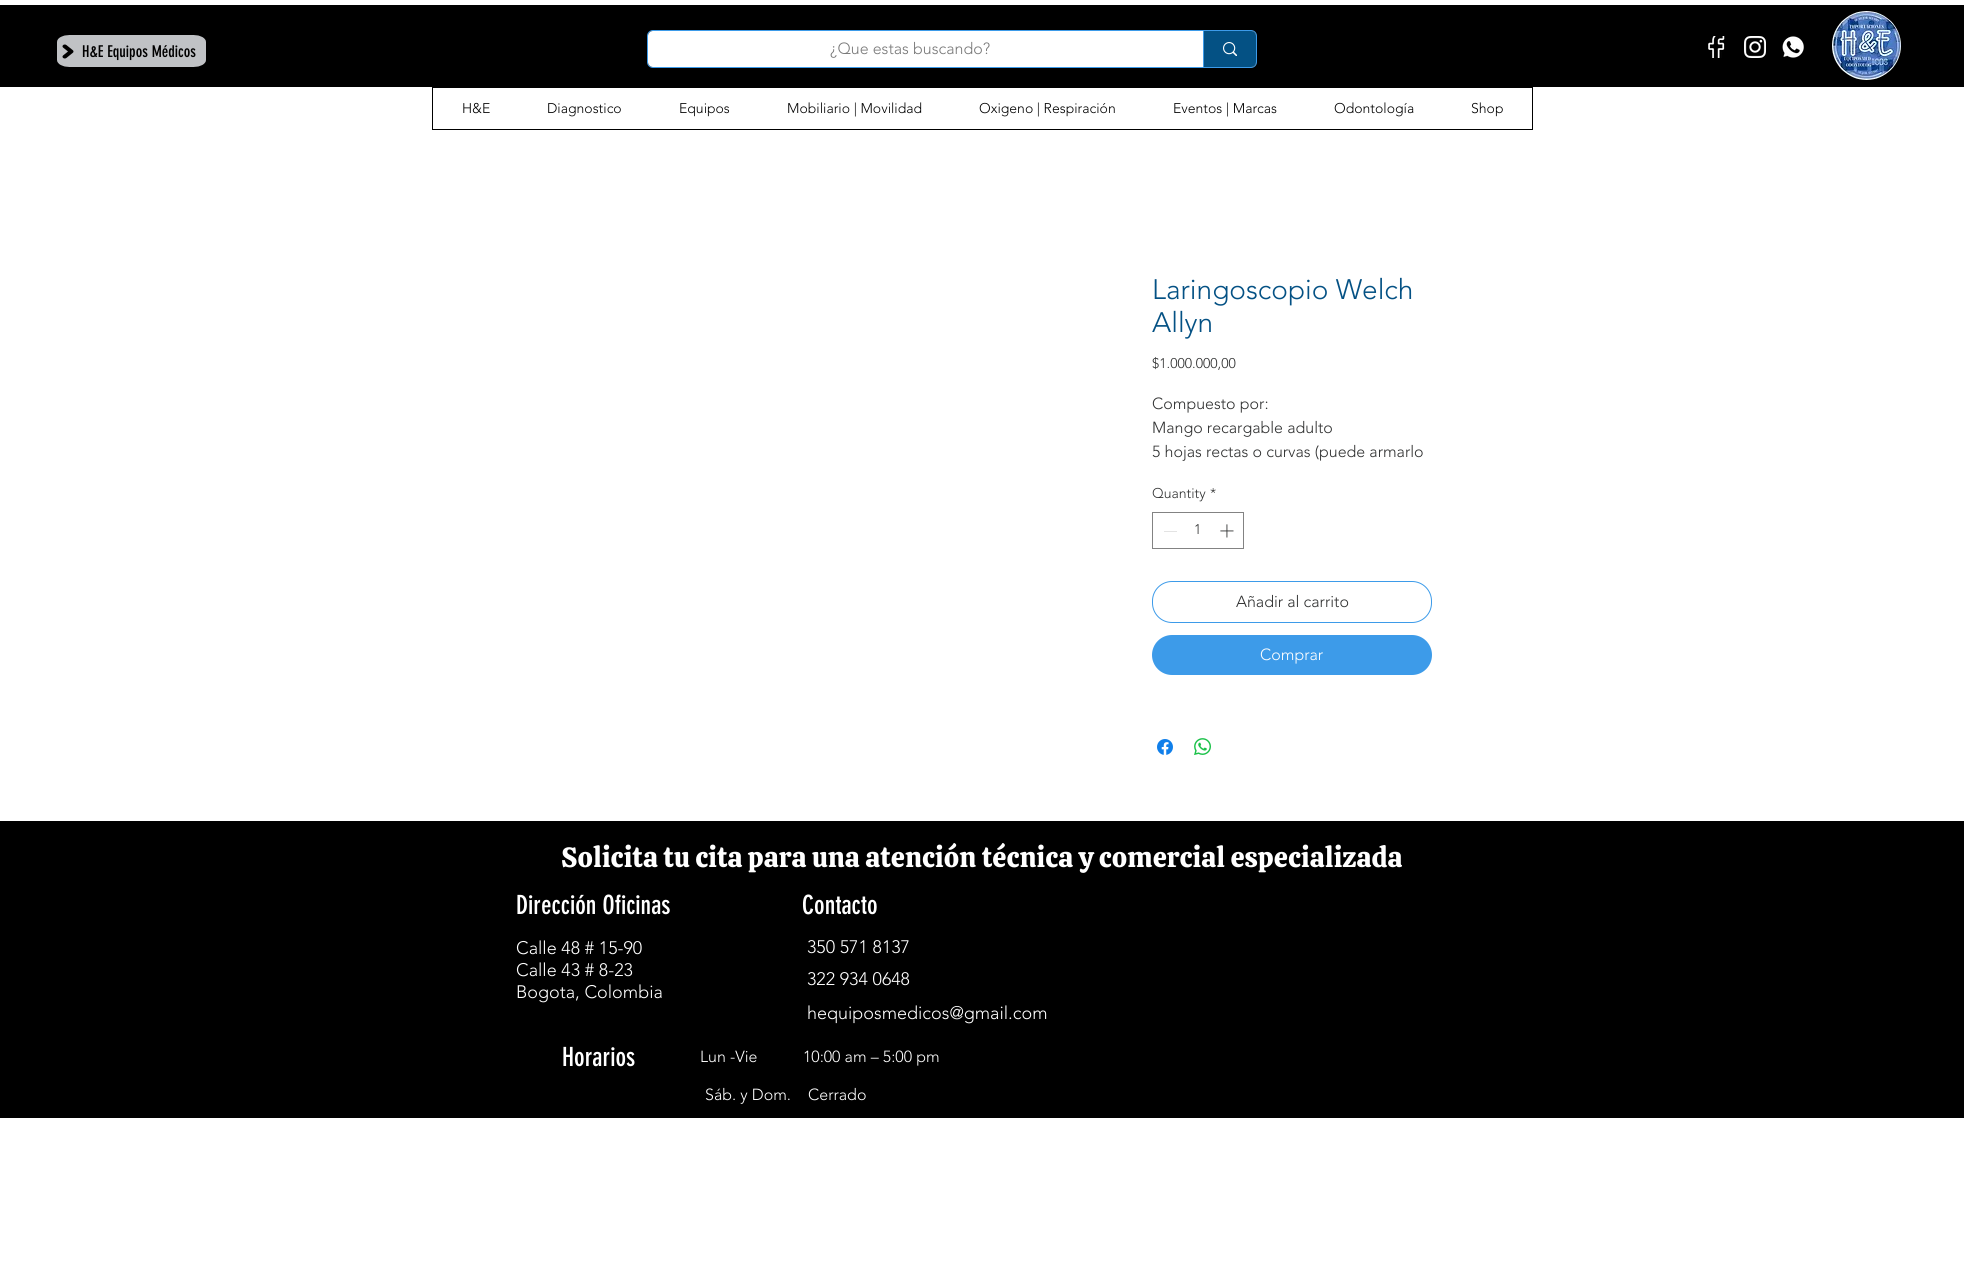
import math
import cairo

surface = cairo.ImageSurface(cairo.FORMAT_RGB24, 1964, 1288)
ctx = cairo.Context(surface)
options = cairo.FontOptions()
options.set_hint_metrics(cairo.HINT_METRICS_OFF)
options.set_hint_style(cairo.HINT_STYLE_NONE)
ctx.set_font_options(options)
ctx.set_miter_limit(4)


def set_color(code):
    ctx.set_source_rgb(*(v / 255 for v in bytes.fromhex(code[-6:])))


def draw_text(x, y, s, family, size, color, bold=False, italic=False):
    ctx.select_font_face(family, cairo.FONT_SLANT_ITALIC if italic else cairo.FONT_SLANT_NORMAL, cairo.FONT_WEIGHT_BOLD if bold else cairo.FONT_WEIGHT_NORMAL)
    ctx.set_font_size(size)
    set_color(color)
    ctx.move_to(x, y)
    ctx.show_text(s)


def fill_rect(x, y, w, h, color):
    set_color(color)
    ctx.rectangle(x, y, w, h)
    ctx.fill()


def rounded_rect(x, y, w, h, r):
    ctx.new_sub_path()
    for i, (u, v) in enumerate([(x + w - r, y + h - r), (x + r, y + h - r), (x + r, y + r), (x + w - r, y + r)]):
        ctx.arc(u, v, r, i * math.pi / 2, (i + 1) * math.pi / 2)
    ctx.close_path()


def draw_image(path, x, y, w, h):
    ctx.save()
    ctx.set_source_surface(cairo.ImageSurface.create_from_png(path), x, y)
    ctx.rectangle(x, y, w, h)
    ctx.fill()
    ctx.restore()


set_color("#ffffff")
ctx.paint()
fill_rect(0, 5, 1964, 82, "#000000")
draw_image("assets/img1.png", 57, 35, 149, 32)
draw_image("assets/img2.png", 62, 44, 12, 15)
draw_text(82, 57, "H&E Equipos Médicos", "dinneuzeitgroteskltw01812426", 16, "#000000")
rounded_rect(647.5, 30.5, 609, 37, 5.5)
set_color("#3d9be9")
ctx.set_line_width(1)
ctx.stroke()
set_color("#ffffff")
rounded_rect(648, 31, 608, 36, 5)
ctx.fill()
draw_text(830, 54, "¿Que estas buscando?", "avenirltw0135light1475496 Light", 16, "#787878")
set_color("#045184")
ctx.new_path()
ctx.move_to(1203, 31)
ctx.line_to(1251, 31)
ctx.curve_to(1254, 31, 1256, 33, 1256, 36)
ctx.line_to(1256, 62)
ctx.curve_to(1256, 65, 1254, 67, 1251, 67)
ctx.line_to(1203, 67)
ctx.close_path()
ctx.fill()
fill_rect(1203, 31, 1, 36, "#3d9be9")
draw_image("assets/img3.png", 1223, 42, 14, 14)
draw_image("assets/img4.png", 1708, 36, 17, 22)
draw_image("assets/img5.png", 1744, 36, 22, 22)
draw_image("assets/img6.png", 1782, 36, 22, 22)
draw_image("assets/img7.png", 1832, 11, 69, 69)
ctx.rectangle(432.5, 87.5, 1100, 42)
set_color("#000000")
ctx.stroke()
draw_text(462, 113, "H&E", "avenirltw0135light1475496 Light", 14, "#000000")
draw_text(547, 113, "Diagnostico", "avenirltw0135light1475496 Light", 14, "#000000")
draw_text(679, 113, "Equipos", "avenirltw0135light1475496 Light", 14, "#000000")
draw_text(787, 113, "Mobiliario | Movilidad", "avenirltw0135light1475496 Light", 14, "#000000")
draw_text(979, 113, "Oxigeno | Respiración", "avenirltw0135light1475496 Light", 14, "#000000")
draw_text(1173, 113, "Eventos | Marcas", "avenirltw0135light1475496 Light", 14, "#000000")
draw_text(1334, 113, "Odontología", "avenirltw0135light1475496 Light", 14, "#000000")
draw_text(1471, 113, "Shop", "avenirltw0135light1475496 Light", 14, "#000000")
draw_text(1152, 299, "Laringoscopio Welch", "avenirltw0135light1475496 Light", 28, "#045184")
draw_text(1152, 332, "Allyn", "avenirltw0135light1475496 Light", 28, "#045184")
draw_text(1152, 368, "$1.000.000,00", "avenirltw0135light1475496 Light", 14, "#303131")
draw_text(1152, 409, "Compuesto por:", "avenirltw0135light1475496 Light", 16, "#303131")
draw_text(1152, 433, "Mango recargable adulto", "avenirltw0135light1475496 Light", 16, "#303131")
draw_text(1152, 457, "5 hojas rectas o curvas (puede armarlo", "avenirltw0135light1475496 Light", 16, "#303131")
draw_text(1152, 498, "Quantity", "avenirltw0135light1475496 Light", 14, "#303131")
draw_text(1210, 498, "*", "avenirltw0135light1475496 Light", 14, "#303131")
ctx.rectangle(1152.5, 512.5, 91, 36)
set_color("#838383")
ctx.stroke()
fill_rect(1164, 531, 13, 1, "#e3e3e3")
draw_text(1194, 534, "1", "avenirltw0135light1475496 Light", 14, "#303131")
draw_image("assets/img8.png", 1220, 524, 14, 14)
rounded_rect(1152.5, 581.5, 279, 41, 19.5)
set_color("#3d9be9")
ctx.stroke()
draw_text(1236, 607, "Añadir al carrito", "avenirltw0135light1475496 Light", 16, "#303131")
set_color("#3d9be9")
rounded_rect(1152, 635, 280, 40, 20)
ctx.fill()
draw_text(1260, 660, "Comprar", "avenirltw0135light1475496 Light", 16, "#ffffff")
draw_image("assets/img9.png", 1157, 739, 16, 16)
draw_image("assets/img10.png", 1194, 738, 17, 17)
fill_rect(0, 821, 1964, 297, "#000000")
draw_text(561, 867, "Solicita tu cita para una atención técnica y comercial especializada", "Calistoga", 28, "#ffffff")
draw_text(516, 914, "Dirección Oficinas", "dinneuzeitgroteskltw01812426", 26, "#ffffff")
draw_text(802, 914, "Contacto", "dinneuzeitgroteskltw01812426", 26, "#ffffff")
draw_text(516, 954, "Calle 48 # 15-90", "avenirltw0135light1475496 Light", 18, "#ffffff")
draw_text(516, 976, "Calle 43 # 8-23", "avenirltw0135light1475496 Light", 18, "#ffffff")
draw_text(516, 998, "Bogota, Colombia", "avenirltw0135light1475496 Light", 18, "#ffffff")
draw_text(807, 953, "350 571 8137", "avenirltw0135light1475496 Light", 18, "#ffffff")
draw_text(807, 985, "322 934 0648", "avenirltw0135light1475496 Light", 18, "#ffffff")
draw_text(807, 1019, "hequiposmedicos@gmail.com", "avenirltw0135light1475496 Light", 18, "#ffffff")
draw_text(562, 1066, "Horarios", "dinneuzeitgroteskltw01812426", 26, "#ffffff")
draw_text(700, 1062, "Lun -Vie", "avenirltw0135light1475496 Light", 16, "#ffffff")
draw_text(803, 1062, "10:00 am – 5:00 pm", "avenirltw0135light1475496 Light", 16, "#ffffff")
draw_text(705, 1100, "Sáb. y Dom.", "avenirltw0135light1475496 Light", 16, "#ffffff")
draw_text(808, 1100, "Cerrado", "avenirltw0135light1475496 Light", 16, "#ffffff")
surface.write_to_png("output.png")
